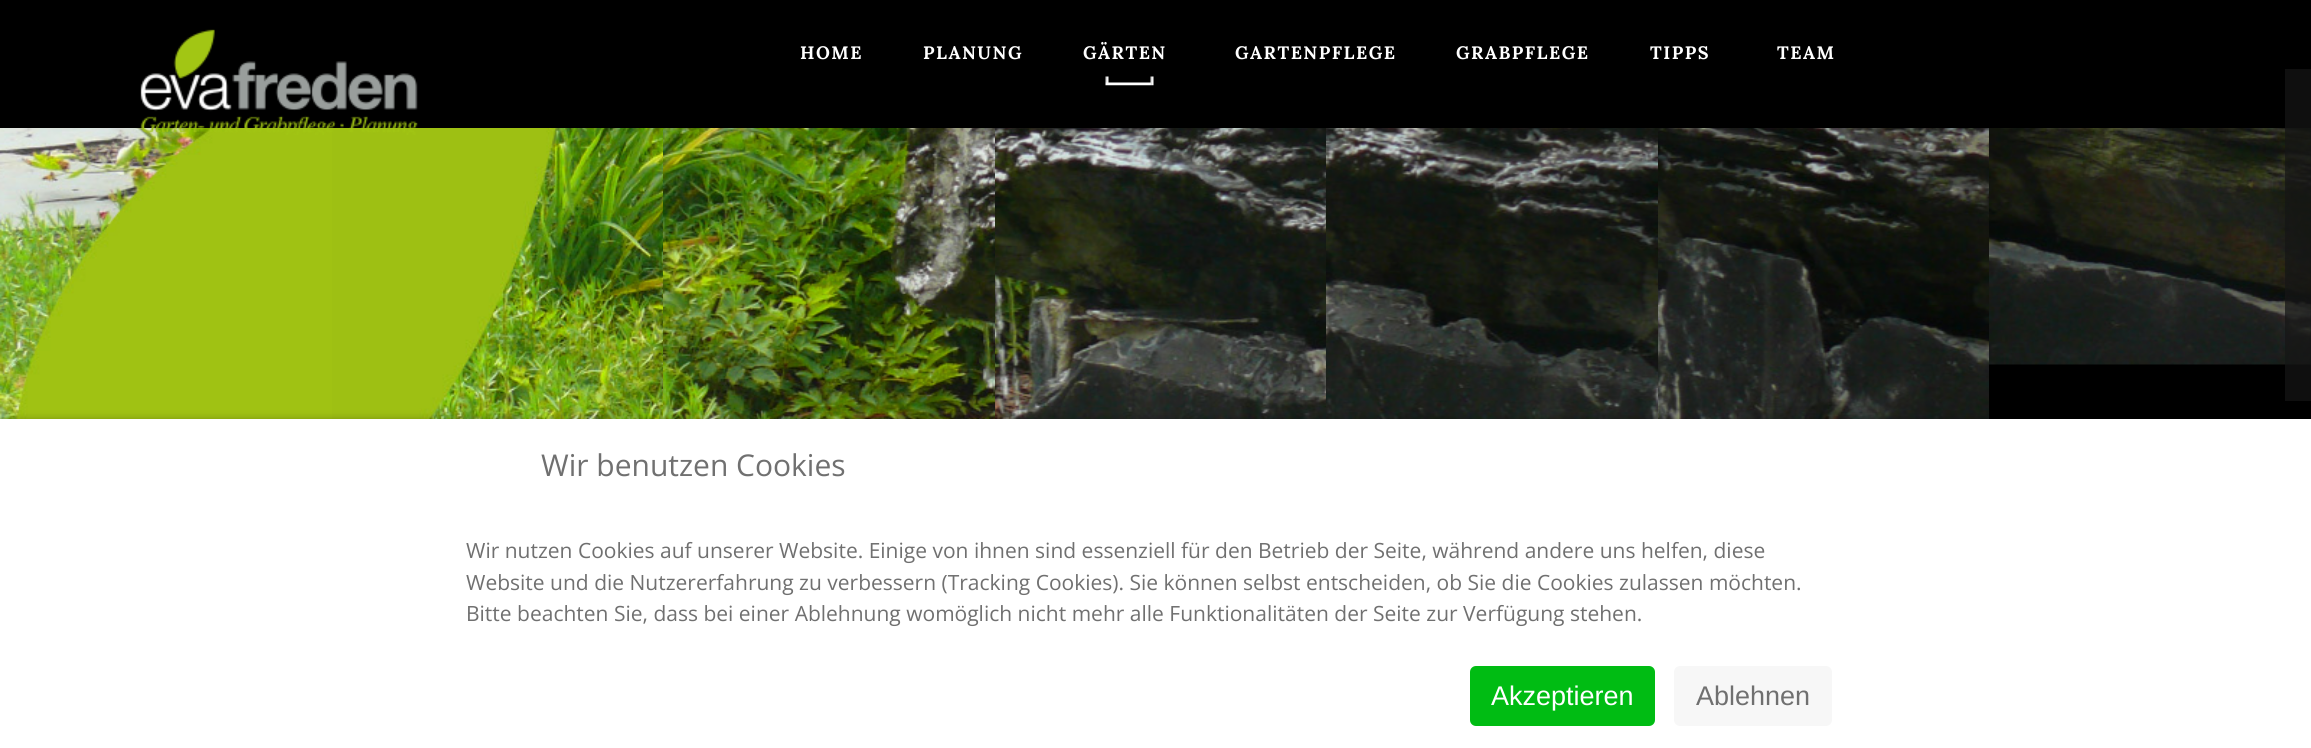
import math
import cairo

surface = cairo.ImageSurface(cairo.FORMAT_RGB24, 2311, 748)
ctx = cairo.Context(surface)
options = cairo.FontOptions()
options.set_hint_metrics(cairo.HINT_METRICS_OFF)
options.set_hint_style(cairo.HINT_STYLE_NONE)
ctx.set_font_options(options)
ctx.set_miter_limit(4)


def set_color(code):
    ctx.set_source_rgb(*(v / 255 for v in bytes.fromhex(code[-6:])))


def draw_text(x, y, s, family, size, color, bold=False, italic=False):
    ctx.select_font_face(family, cairo.FONT_SLANT_ITALIC if italic else cairo.FONT_SLANT_NORMAL, cairo.FONT_WEIGHT_BOLD if bold else cairo.FONT_WEIGHT_NORMAL)
    ctx.set_font_size(size)
    set_color(color)
    ctx.move_to(x, y)
    ctx.show_text(s)


def draw_spaced(x, y, s, letter, word):
    ctx.move_to(x, y)
    for ch in s:
        ctx.show_text(ch)
        ctx.rel_move_to(letter + word * (ch == ' '), 0)


def fill_rect(x, y, w, h, color):
    set_color(color)
    ctx.rectangle(x, y, w, h)
    ctx.fill()


def rounded_rect(x, y, w, h, r):
    ctx.new_sub_path()
    for i, (u, v) in enumerate([(x + w - r, y + h - r), (x + r, y + h - r), (x + r, y + r), (x + w - r, y + r)]):
        ctx.arc(u, v, r, i * math.pi / 2, (i + 1) * math.pi / 2)
    ctx.close_path()


def draw_shadow(x, y, w, h, r, blur, alpha):
    ctx.push_group_with_content(cairo.CONTENT_ALPHA)
    ctx.set_operator(cairo.OPERATOR_SOURCE)
    for i in range(15, -16, -2):
        e = blur * i / 6
        if min(w, h) + 2 * e > 0:
            ctx.set_source_rgba(0, 0, 0, alpha * math.erfc((i - 1) / 8.5) / 2)
            rounded_rect(x - e, y - e, w + 2 * e, h + 2 * e, max(0, min(r + e + blur * .6, min(w, h) / 2 + e)))
            ctx.fill()
    ctx.mask(ctx.pop_group())


def draw_image(path, x, y, w, h):
    ctx.save()
    ctx.set_source_surface(cairo.ImageSurface.create_from_png(path), x, y)
    ctx.rectangle(x, y, w, h)
    ctx.fill()
    ctx.restore()


set_color("#000000")
ctx.paint()
draw_image("assets/img3.png", 0, 128, 332, 291)
draw_image("assets/img4.png", 332, 128, 331, 291)
draw_image("assets/img1.png", 140, 29, 278, 106)
ctx.select_font_face("Lora", cairo.FONT_SLANT_NORMAL, cairo.FONT_WEIGHT_BOLD)
ctx.set_font_size(18)
set_color("#ffffff")
draw_spaced(800, 59, "HOME", 1.5, 0)
draw_spaced(923, 59, "PLANUNG", 1.5, 0)
draw_image("assets/img2.png", 1105, 76, 49, 10)
draw_spaced(1083, 59, "GÄRTEN", 1.5, 0)
draw_spaced(1235, 59, "GARTENPFLEGE", 1.5, 0)
draw_spaced(1456, 59, "GRABPFLEGE", 1.5, 0)
draw_spaced(1650, 59, "TIPPS", 1.5, 0)
draw_spaced(1777, 59, "TEAM", 1.5, 0)
draw_image("assets/img9.png", 1989, 128, 322, 237)
ctx.set_source_rgba(0.086, 0.086, 0.086, 0.72)
ctx.rectangle(2285, 69, 26, 332)
ctx.fill()
draw_image("assets/img5.png", 663, 128, 332, 291)
draw_image("assets/img6.png", 995, 128, 331, 291)
draw_image("assets/img7.png", 1326, 128, 332, 291)
draw_image("assets/img8.png", 1658, 128, 331, 291)
set_color("#000000")
draw_shadow(0, 419, 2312, 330, 0, 4, 0.25)
fill_rect(0, 419, 2311, 329, "#ffffff")
draw_text(541, 476, "Wir benutzen Cookies", "Open Sans", 30, "#707070")
draw_text(466, 558, "Wir nutzen Cookies auf unserer Website. Einige von ihnen sind essenziell für den Betrieb der Seite, während andere uns helfen, diese", "Open Sans", 21, "#707070")
draw_text(466, 590, "Website und die Nutzererfahrung zu verbessern (Tracking Cookies). Sie können selbst entscheiden, ob Sie die Cookies zulassen möchten.", "Open Sans", 21, "#707070")
draw_text(466, 621, "Bitte beachten Sie, dass bei einer Ablehnung womöglich nicht mehr alle Funktionalitäten der Seite zur Verfügung stehen.", "Open Sans", 21, "#707070")
set_color("#00bc13")
rounded_rect(1470, 666, 185, 60, 6)
ctx.fill()
draw_text(1491, 705, "Akzeptieren", "Liberation Sans", 27, "#ffffff")
set_color("#f7f7f7")
rounded_rect(1674, 666, 158, 60, 6)
ctx.fill()
draw_text(1696, 705, "Ablehnen", "Liberation Sans", 27, "#707070")
surface.write_to_png("output.png")
